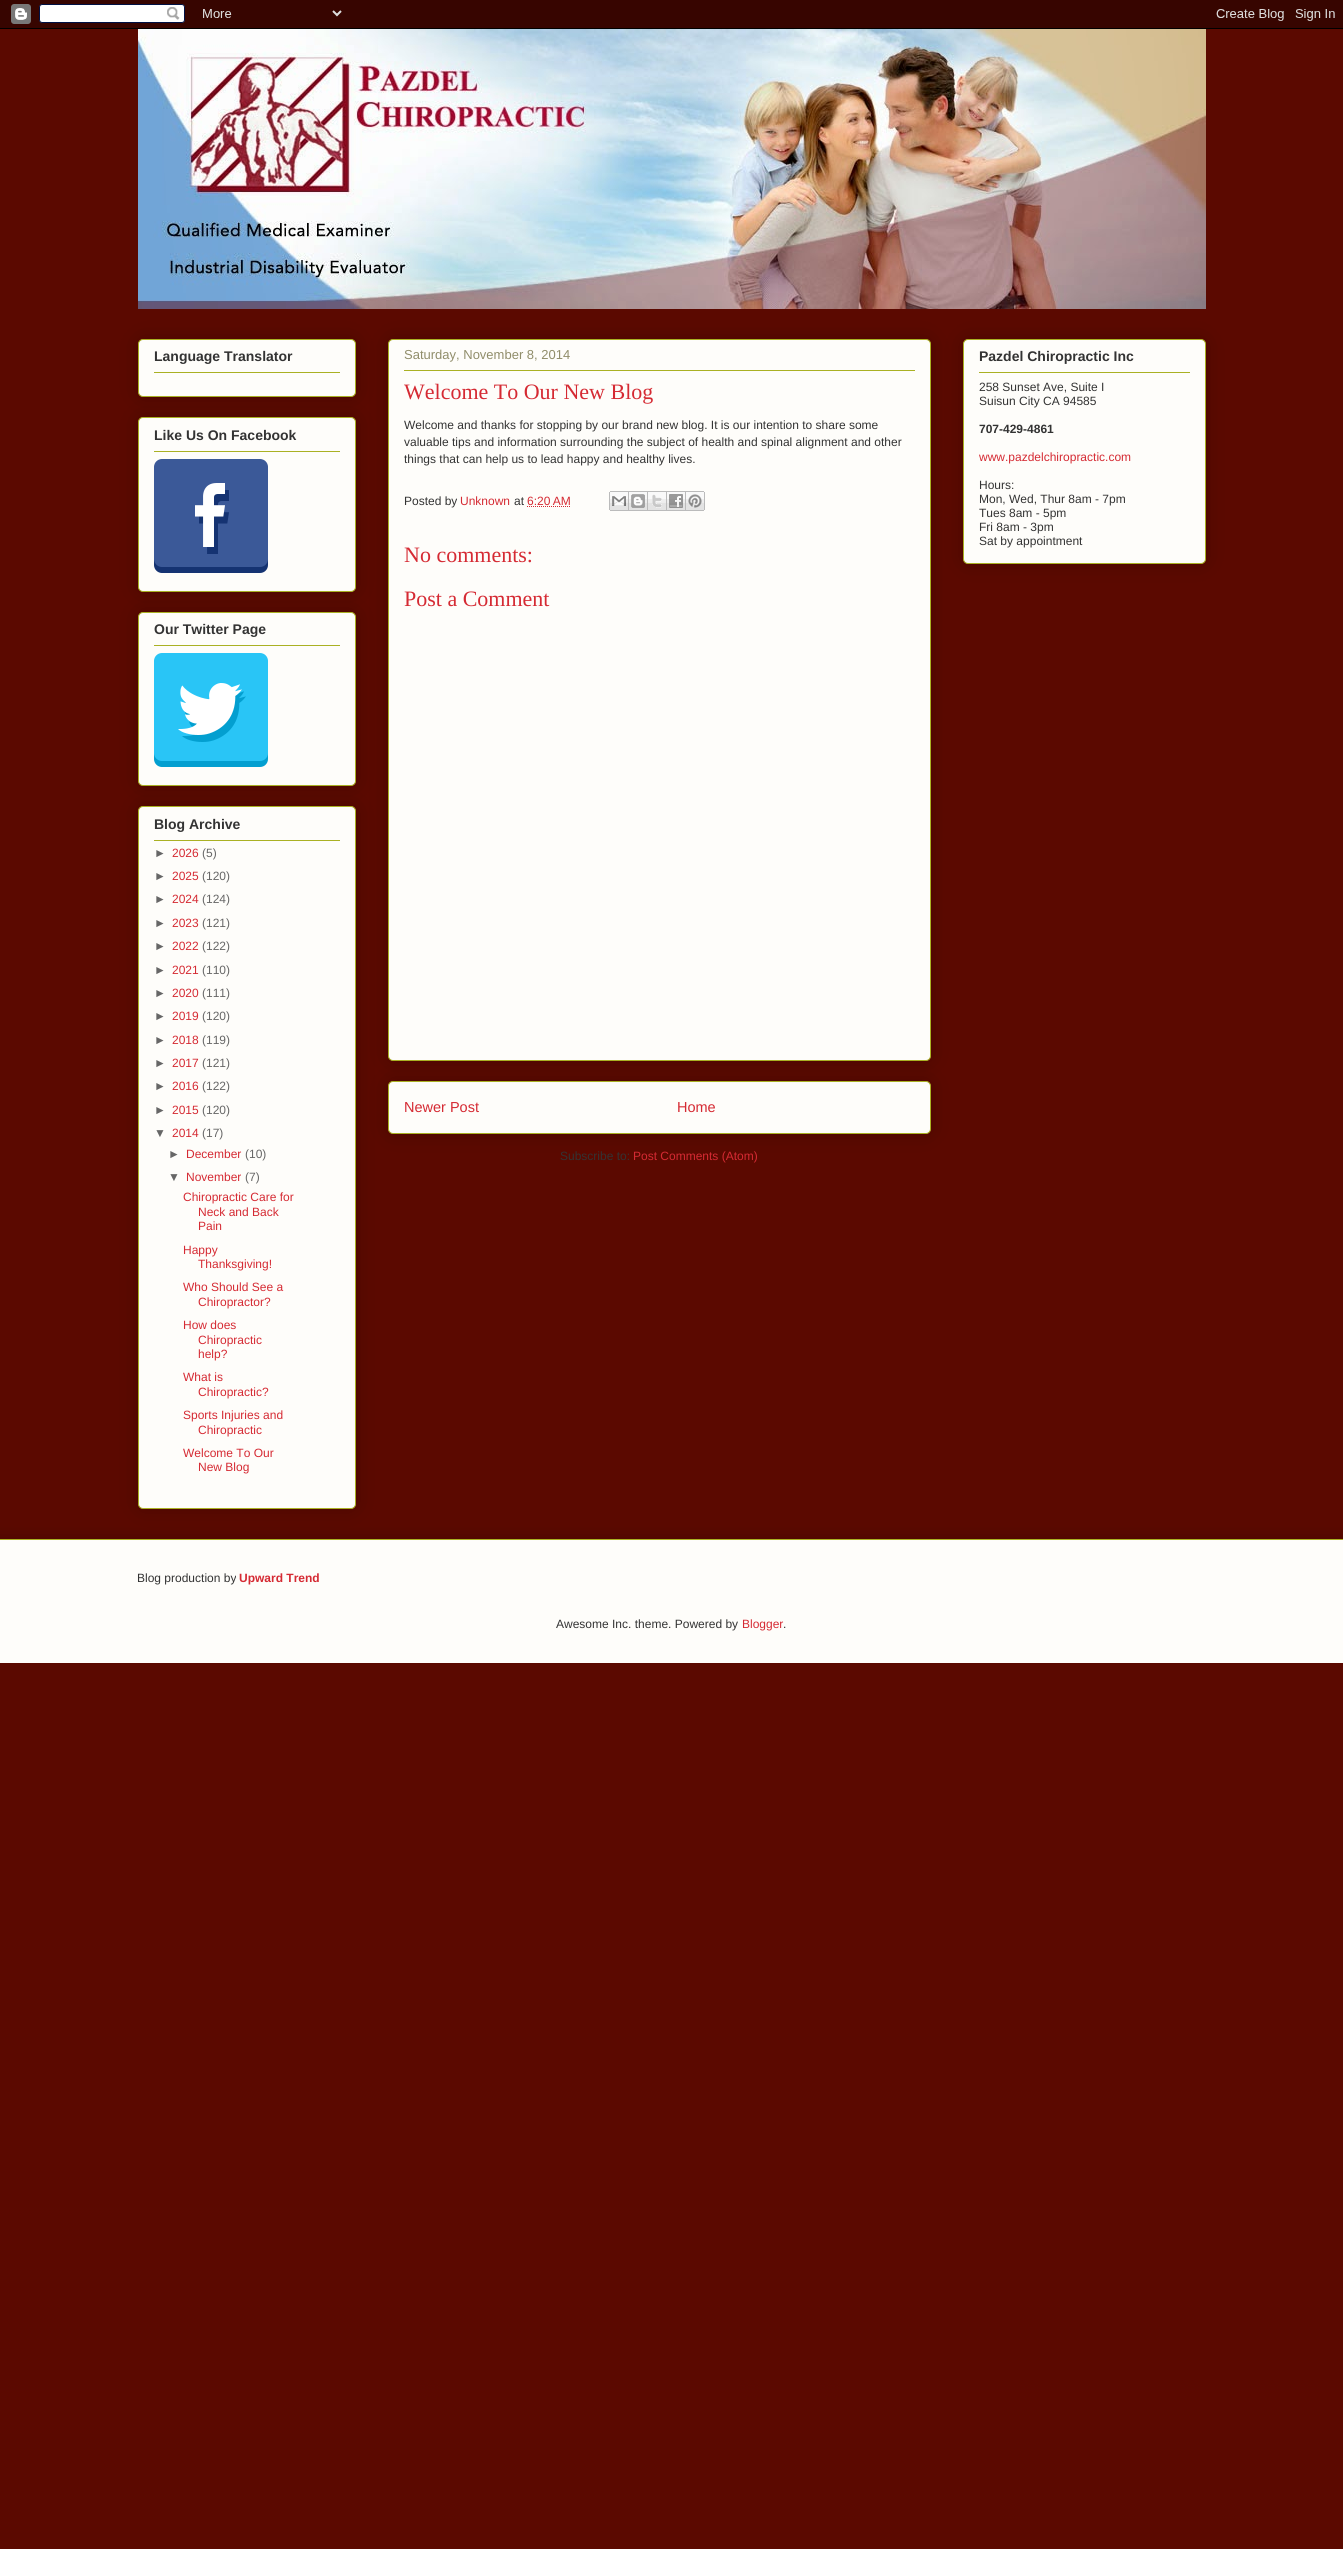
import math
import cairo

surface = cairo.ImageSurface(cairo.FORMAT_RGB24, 1343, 2549)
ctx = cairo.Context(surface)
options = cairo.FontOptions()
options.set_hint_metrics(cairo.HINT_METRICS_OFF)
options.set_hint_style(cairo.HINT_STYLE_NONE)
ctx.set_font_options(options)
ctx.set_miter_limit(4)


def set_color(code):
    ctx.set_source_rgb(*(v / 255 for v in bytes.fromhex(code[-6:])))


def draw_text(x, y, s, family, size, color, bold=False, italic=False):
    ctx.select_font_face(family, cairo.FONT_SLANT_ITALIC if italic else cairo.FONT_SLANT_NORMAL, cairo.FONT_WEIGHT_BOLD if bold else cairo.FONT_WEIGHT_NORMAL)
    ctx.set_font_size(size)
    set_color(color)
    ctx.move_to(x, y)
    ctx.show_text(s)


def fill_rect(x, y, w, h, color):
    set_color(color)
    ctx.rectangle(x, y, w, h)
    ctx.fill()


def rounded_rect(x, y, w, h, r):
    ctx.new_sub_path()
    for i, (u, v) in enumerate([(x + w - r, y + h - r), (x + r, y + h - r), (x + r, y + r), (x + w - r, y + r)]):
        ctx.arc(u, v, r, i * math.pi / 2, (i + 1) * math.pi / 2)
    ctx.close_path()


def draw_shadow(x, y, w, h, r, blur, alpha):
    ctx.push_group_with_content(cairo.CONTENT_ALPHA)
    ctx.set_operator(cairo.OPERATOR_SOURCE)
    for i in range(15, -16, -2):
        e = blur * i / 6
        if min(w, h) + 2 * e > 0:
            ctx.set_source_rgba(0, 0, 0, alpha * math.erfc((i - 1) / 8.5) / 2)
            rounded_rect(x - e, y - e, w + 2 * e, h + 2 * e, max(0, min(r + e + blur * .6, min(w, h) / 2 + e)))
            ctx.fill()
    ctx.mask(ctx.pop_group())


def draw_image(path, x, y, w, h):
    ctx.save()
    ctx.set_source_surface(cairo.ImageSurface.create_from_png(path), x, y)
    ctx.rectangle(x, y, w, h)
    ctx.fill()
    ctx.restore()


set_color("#5b0900")
ctx.paint()
draw_image("assets/img1.png", 0, 0, 1343, 29)
draw_image("assets/img2.png", 138, 29, 1068, 280)
set_color("#000000")
draw_shadow(138, 339, 218, 58, 5, 10, 0.2)
set_color("#fefdfa")
rounded_rect(138.5, 339.5, 217, 57, 4.5)
ctx.fill_preserve()
set_color("#aab123")
ctx.set_line_width(1)
ctx.stroke()
draw_text(154, 361, "Language Translator", "Liberation Sans", 14, "#333333", bold=True)
fill_rect(154, 372, 186, 1, "#aab123")
set_color("#000000")
draw_shadow(138, 417, 218, 175, 5, 10, 0.2)
set_color("#fefdfa")
rounded_rect(138.5, 417.5, 217, 174, 4.5)
ctx.fill_preserve()
set_color("#aab123")
ctx.stroke()
draw_text(154, 440, "Like Us On Facebook", "Liberation Sans", 14, "#333333", bold=True)
fill_rect(154, 451, 186, 1, "#aab123")
draw_image("assets/img3.png", 154, 459, 114, 114)
set_color("#000000")
draw_shadow(138, 612, 218, 174, 5, 10, 0.2)
set_color("#fefdfa")
rounded_rect(138.5, 612.5, 217, 173, 4.5)
ctx.fill_preserve()
set_color("#aab123")
ctx.stroke()
draw_text(154, 634, "Our Twitter Page", "Liberation Sans", 14, "#333333", bold=True)
fill_rect(154, 645, 186, 1, "#aab123")
draw_image("assets/img4.png", 154, 653, 114, 114)
set_color("#000000")
draw_shadow(138, 806, 218, 703, 5, 10, 0.2)
set_color("#fefdfa")
rounded_rect(138.5, 806.5, 217, 702, 4.5)
ctx.fill_preserve()
set_color("#aab123")
ctx.stroke()
draw_text(154, 829, "Blog Archive", "Liberation Sans", 14, "#333333", bold=True)
fill_rect(154, 840, 186, 1, "#aab123")
draw_text(154, 857, "►", "Liberation Sans", 12, "#666666")
draw_text(172, 857, "2026", "Liberation Sans", 12, "#d52a33")
draw_text(202, 857, "(5)", "Liberation Sans", 12, "#666666")
draw_text(154, 880, "►", "Liberation Sans", 12, "#666666")
draw_text(172, 880, "2025", "Liberation Sans", 12, "#d52a33")
draw_text(202, 880, "(120)", "Liberation Sans", 12, "#666666")
draw_text(154, 903, "►", "Liberation Sans", 12, "#666666")
draw_text(172, 903, "2024", "Liberation Sans", 12, "#d52a33")
draw_text(202, 903, "(124)", "Liberation Sans", 12, "#666666")
draw_text(154, 927, "►", "Liberation Sans", 12, "#666666")
draw_text(172, 927, "2023", "Liberation Sans", 12, "#d52a33")
draw_text(202, 927, "(121)", "Liberation Sans", 12, "#666666")
draw_text(154, 950, "►", "Liberation Sans", 12, "#666666")
draw_text(172, 950, "2022", "Liberation Sans", 12, "#d52a33")
draw_text(202, 950, "(122)", "Liberation Sans", 12, "#666666")
draw_text(154, 974, "►", "Liberation Sans", 12, "#666666")
draw_text(172, 974, "2021", "Liberation Sans", 12, "#d52a33")
draw_text(202, 974, "(110)", "Liberation Sans", 12, "#666666")
draw_text(154, 997, "►", "Liberation Sans", 12, "#666666")
draw_text(172, 997, "2020", "Liberation Sans", 12, "#d52a33")
draw_text(202, 997, "(111)", "Liberation Sans", 12, "#666666")
draw_text(154, 1020, "►", "Liberation Sans", 12, "#666666")
draw_text(172, 1020, "2019", "Liberation Sans", 12, "#d52a33")
draw_text(202, 1020, "(120)", "Liberation Sans", 12, "#666666")
draw_text(154, 1044, "►", "Liberation Sans", 12, "#666666")
draw_text(172, 1044, "2018", "Liberation Sans", 12, "#d52a33")
draw_text(202, 1044, "(119)", "Liberation Sans", 12, "#666666")
draw_text(154, 1067, "►", "Liberation Sans", 12, "#666666")
draw_text(172, 1067, "2017", "Liberation Sans", 12, "#d52a33")
draw_text(202, 1067, "(121)", "Liberation Sans", 12, "#666666")
draw_text(154, 1090, "►", "Liberation Sans", 12, "#666666")
draw_text(172, 1090, "2016", "Liberation Sans", 12, "#d52a33")
draw_text(202, 1090, "(122)", "Liberation Sans", 12, "#666666")
draw_text(154, 1114, "►", "Liberation Sans", 12, "#666666")
draw_text(172, 1114, "2015", "Liberation Sans", 12, "#d52a33")
draw_text(202, 1114, "(120)", "Liberation Sans", 12, "#666666")
draw_text(154, 1137, "▼", "Liberation Sans", 12, "#666666")
draw_text(172, 1137, "2014", "Liberation Sans", 12, "#d52a33")
draw_text(202, 1137, "(17)", "Liberation Sans", 12, "#666666")
draw_text(168, 1158, "►", "Liberation Sans", 12, "#666666")
draw_text(186, 1158, "December", "Liberation Sans", 12, "#d52a33")
draw_text(245, 1158, "(10)", "Liberation Sans", 12, "#666666")
draw_text(168, 1181, "▼", "Liberation Sans", 12, "#666666")
draw_text(186, 1181, "November", "Liberation Sans", 12, "#d52a33")
draw_text(245, 1181, "(7)", "Liberation Sans", 12, "#666666")
draw_text(183, 1201, "Chiropractic Care for", "Liberation Sans", 12, "#d52a33")
draw_text(198, 1216, "Neck and Back", "Liberation Sans", 12, "#d52a33")
draw_text(198, 1230, "Pain", "Liberation Sans", 12, "#d52a33")
draw_text(183, 1254, "Happy", "Liberation Sans", 12, "#d52a33")
draw_text(198, 1268, "Thanksgiving!", "Liberation Sans", 12, "#d52a33")
draw_text(183, 1291, "Who Should See a", "Liberation Sans", 12, "#d52a33")
draw_text(198, 1306, "Chiropractor?", "Liberation Sans", 12, "#d52a33")
draw_text(183, 1329, "How does", "Liberation Sans", 12, "#d52a33")
draw_text(198, 1344, "Chiropractic", "Liberation Sans", 12, "#d52a33")
draw_text(198, 1358, "help?", "Liberation Sans", 12, "#d52a33")
draw_text(183, 1381, "What is", "Liberation Sans", 12, "#d52a33")
draw_text(198, 1396, "Chiropractic?", "Liberation Sans", 12, "#d52a33")
draw_text(183, 1419, "Sports Injuries and", "Liberation Sans", 12, "#d52a33")
draw_text(198, 1434, "Chiropractic", "Liberation Sans", 12, "#d52a33")
draw_text(183, 1457, "Welcome To Our", "Liberation Sans", 12, "#d52a33")
draw_text(198, 1471, "New Blog", "Liberation Sans", 12, "#d52a33")
set_color("#000000")
draw_shadow(388, 1081, 543, 53, 5, 10, 0.2)
set_color("#fefdfa")
rounded_rect(388.5, 1081.5, 542, 52, 4.5)
ctx.fill_preserve()
set_color("#aab123")
ctx.stroke()
set_color("#000000")
draw_shadow(388, 339, 543, 722, 5, 10, 0.2)
set_color("#fefdfa")
rounded_rect(388.5, 339.5, 542, 721, 4.5)
ctx.fill_preserve()
set_color("#aab123")
ctx.stroke()
draw_text(404, 359, "Saturday, November 8, 2014", "Liberation Sans", 13, "#908d6a")
fill_rect(404, 370, 511, 1, "#aab123")
draw_text(404, 399, "Welcome To Our New Blog", "Liberation Serif", 22, "#d52a33")
draw_text(404, 429, "Welcome and thanks for stopping by our brand new blog. It is our intention to share some", "Liberation Sans", 12, "#333333")
draw_text(404, 446, "valuable tips and information surrounding the subject of health and spinal alignment and other", "Liberation Sans", 12, "#333333")
draw_text(404, 463, "things that can help us to lead happy and healthy lives.", "Liberation Sans", 12, "#333333")
draw_text(404, 505, "Posted by", "Liberation Sans", 12, "#333333")
draw_text(460, 505, "Unknown", "Liberation Sans", 12, "#d52a33")
draw_text(514, 505, "at", "Liberation Sans", 12, "#333333")
draw_text(527, 505, "6:20 AM", "Liberation Sans", 12, "#d52a33")
ctx.new_path()
ctx.move_to(527, 506.5)
ctx.line_to(570.5, 506.5)
ctx.set_dash([1, 1])
ctx.stroke()
draw_image("assets/img5.png", 609, 491, 20, 20)
draw_image("assets/img6.png", 629, 491, 19, 20)
draw_image("assets/img7.png", 648, 491, 19, 20)
draw_image("assets/img8.png", 667, 491, 19, 20)
draw_image("assets/img9.png", 686, 491, 19, 20)
draw_text(404, 562, "No comments:", "Liberation Serif", 22, "#d52a33")
draw_text(404, 606, "Post a Comment", "Liberation Serif", 22, "#d52a33")
draw_text(404, 1112, "Newer Post", "Liberation Sans", 14.5, "#d52a33")
draw_text(677, 1112, "Home", "Liberation Sans", 14.5, "#d52a33")
draw_text(560, 1160, "Subscribe to:", "Liberation Sans", 12, "#333333")
draw_text(633, 1160, "Post Comments (Atom)", "Liberation Sans", 12, "#d52a33")
set_color("#000000")
draw_shadow(963, 339, 243, 225, 5, 10, 0.2)
set_color("#fefdfa")
rounded_rect(963.5, 339.5, 242, 224, 4.5)
ctx.fill_preserve()
set_color("#aab123")
ctx.set_dash([])
ctx.stroke()
draw_text(979, 361, "Pazdel Chiropractic Inc", "Liberation Sans", 14, "#333333", bold=True)
fill_rect(979, 372, 211, 1, "#aab123")
draw_text(979, 391, "258 Sunset Ave, Suite I", "Liberation Sans", 12, "#333333")
draw_text(979, 405, "Suisun City CA 94585", "Liberation Sans", 12, "#333333")
draw_text(979, 433, "707-429-4861", "Liberation Sans", 12, "#333333", bold=True)
draw_text(979, 461, "www.pazdelchiropractic.com", "Liberation Sans", 12, "#d52a33")
draw_text(979, 489, "Hours:", "Liberation Sans", 12, "#333333")
draw_text(979, 503, "Mon, Wed, Thur 8am - 7pm", "Liberation Sans", 12, "#333333")
draw_text(979, 517, "Tues 8am - 5pm", "Liberation Sans", 12, "#333333")
draw_text(979, 531, "Fri 8am - 3pm", "Liberation Sans", 12, "#333333")
draw_text(979, 545, "Sat by appointment", "Liberation Sans", 12, "#333333")
ctx.save()
ctx.rectangle(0, 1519, 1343, 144)
ctx.clip()
set_color("#000000")
draw_shadow(-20, 1539, 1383, 124, 0, 10, 0.2)
ctx.restore()
fill_rect(0, 1540, 1343, 123, "#fefdfa")
fill_rect(0, 1539, 1343, 1, "#aab123")
draw_text(137, 1582, "Blog production by", "Liberation Sans", 12, "#333333")
draw_text(239, 1582, "Upward Trend", "Liberation Sans", 12, "#d52a33", bold=True)
draw_text(556, 1628, "Awesome Inc. theme. Powered by", "Liberation Sans", 12, "#333333")
draw_text(742, 1628, "Blogger", "Liberation Sans", 12, "#d52a33")
draw_text(783, 1628, ".", "Liberation Sans", 12, "#333333")
surface.write_to_png("output.png")
